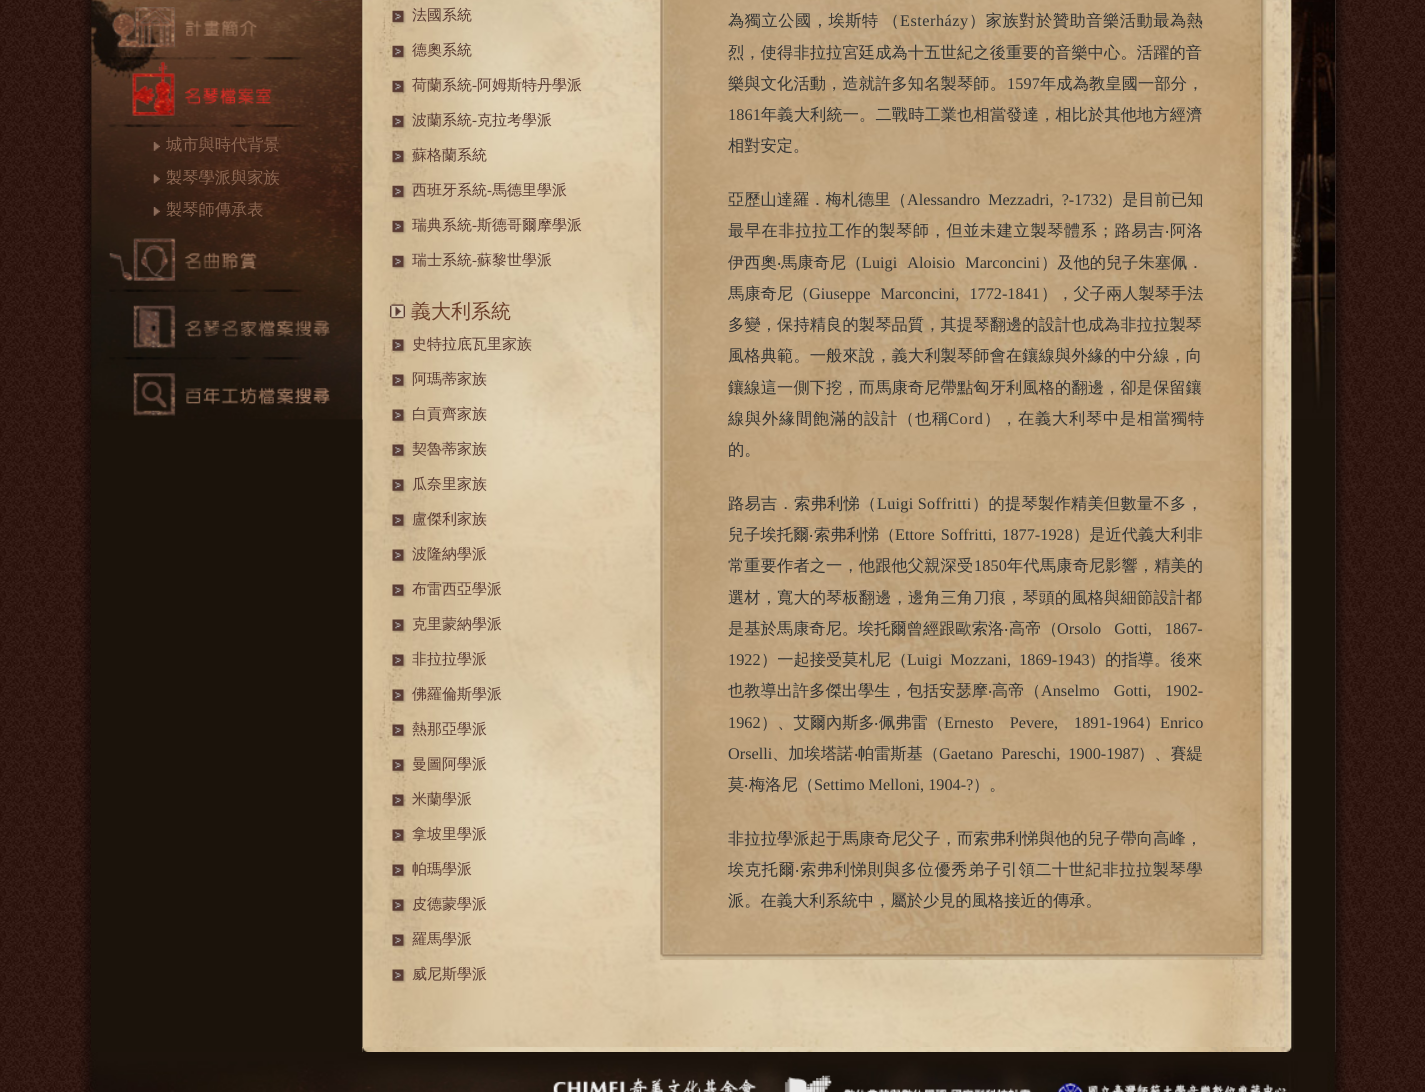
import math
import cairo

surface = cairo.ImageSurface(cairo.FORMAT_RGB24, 1425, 1092)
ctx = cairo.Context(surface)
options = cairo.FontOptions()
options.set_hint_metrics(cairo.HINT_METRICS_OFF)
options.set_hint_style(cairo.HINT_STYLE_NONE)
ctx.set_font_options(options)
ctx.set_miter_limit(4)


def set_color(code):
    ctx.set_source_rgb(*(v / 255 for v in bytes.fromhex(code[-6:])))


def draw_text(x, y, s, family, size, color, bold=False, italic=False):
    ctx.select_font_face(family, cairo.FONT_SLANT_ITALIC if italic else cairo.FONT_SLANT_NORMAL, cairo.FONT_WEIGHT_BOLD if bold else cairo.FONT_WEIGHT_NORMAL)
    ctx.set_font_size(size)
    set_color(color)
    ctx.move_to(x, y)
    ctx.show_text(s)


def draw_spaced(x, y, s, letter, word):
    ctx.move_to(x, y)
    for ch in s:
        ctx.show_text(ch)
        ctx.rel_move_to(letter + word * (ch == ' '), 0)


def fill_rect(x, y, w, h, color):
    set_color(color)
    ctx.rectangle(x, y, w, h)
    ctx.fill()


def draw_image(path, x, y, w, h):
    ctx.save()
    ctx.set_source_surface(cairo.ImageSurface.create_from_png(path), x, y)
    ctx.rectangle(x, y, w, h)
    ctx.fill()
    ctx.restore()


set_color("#ffffff")
ctx.paint()
draw_image("assets/img1.png", 0, 0, 1425, 1092)
draw_image("assets/img2.png", 77, 0, 1272, 1092)
fill_rect(91, 0, 1244, 1052, "#1b130b")
draw_image("assets/img3.png", 91, 0, 272, 420)
draw_image("assets/img4.png", 92, 7, 213, 53)
draw_image("assets/img5.png", 92, 61, 213, 67)
draw_image("assets/img6.png", 153, 142, 7, 9)
draw_text(166, 150, "城市與時代背景", "WenQuanYi Zen Hei Medium", 16.25, "#8a6550")
draw_image("assets/img7.png", 153, 174, 7, 10)
draw_text(166, 183, "製琴學派與家族", "WenQuanYi Zen Hei Medium", 16.25, "#8a6550")
draw_image("assets/img8.png", 153, 207, 7, 9)
draw_text(166, 215, "製琴師傳承表", "WenQuanYi Zen Hei Medium", 16.25, "#8a6550")
draw_image("assets/img9.png", 109, 238, 195, 54)
draw_image("assets/img10.png", 109, 305, 221, 55)
draw_image("assets/img11.png", 133, 373, 198, 43)
draw_image("assets/img12.png", 362, 0, 932, 1052)
draw_image("assets/img13.png", 362, 0, 973, 420)
draw_image("assets/img14.png", 392, 10, 14, 15)
draw_text(412, 20, "法國系統", "WenQuanYi Zen Hei Medium", 15, "#593b33")
draw_image("assets/img15.png", 392, 45, 14, 15)
draw_text(412, 55, "德奧系統", "WenQuanYi Zen Hei Medium", 15, "#593b33")
draw_image("assets/img16.png", 392, 80, 14, 15)
draw_text(412, 90, "荷蘭系統", "WenQuanYi Zen Hei Medium", 15, "#593b33")
draw_text(472, 90, "-", "Liberation Serif", 15, "#593b33")
draw_text(477, 90, "阿姆斯特丹學派", "WenQuanYi Zen Hei Medium", 15, "#593b33")
draw_image("assets/img17.png", 392, 115, 14, 15)
draw_text(412, 125, "波蘭系統", "WenQuanYi Zen Hei Medium", 15, "#593b33")
draw_text(472, 125, "-", "Liberation Serif", 15, "#593b33")
draw_text(477, 125, "克拉考學派", "WenQuanYi Zen Hei Medium", 15, "#593b33")
draw_image("assets/img18.png", 392, 150, 14, 15)
draw_text(412, 160, "蘇格蘭系統", "WenQuanYi Zen Hei Medium", 15, "#593b33")
draw_image("assets/img19.png", 392, 185, 14, 15)
draw_text(412, 195, "西班牙系統", "WenQuanYi Zen Hei Medium", 15, "#593b33")
draw_text(487, 195, "-", "Liberation Serif", 15, "#593b33")
draw_text(492, 195, "馬德里學派", "WenQuanYi Zen Hei Medium", 15, "#593b33")
draw_image("assets/img20.png", 392, 220, 14, 15)
draw_text(412, 230, "瑞典系統", "WenQuanYi Zen Hei Medium", 15, "#593b33")
draw_text(472, 230, "-", "Liberation Serif", 15, "#593b33")
draw_text(477, 230, "斯德哥爾摩學派", "WenQuanYi Zen Hei Medium", 15, "#593b33")
draw_image("assets/img21.png", 392, 255, 14, 15)
draw_text(412, 265, "瑞士系統", "WenQuanYi Zen Hei Medium", 15, "#593b33")
draw_text(472, 265, "-", "Liberation Serif", 15, "#593b33")
draw_text(477, 265, "蘇黎世學派", "WenQuanYi Zen Hei Medium", 15, "#593b33")
draw_image("assets/img22.png", 390, 304, 15, 15)
draw_text(411, 318, "義大利系統", "WenQuanYi Zen Hei Medium", 20, "#6b3f2a")
draw_image("assets/img23.png", 392, 339, 14, 14)
draw_text(412, 349, "史特拉底瓦里家族", "WenQuanYi Zen Hei Medium", 15, "#593b33")
draw_image("assets/img24.png", 392, 374, 14, 14)
draw_text(412, 384, "阿瑪蒂家族", "WenQuanYi Zen Hei Medium", 15, "#593b33")
draw_image("assets/img25.png", 392, 409, 14, 14)
draw_text(412, 419, "白貢齊家族", "WenQuanYi Zen Hei Medium", 15, "#593b33")
draw_image("assets/img26.png", 392, 444, 14, 14)
draw_text(412, 454, "契魯蒂家族", "WenQuanYi Zen Hei Medium", 15, "#593b33")
draw_image("assets/img27.png", 392, 479, 14, 14)
draw_text(412, 489, "瓜奈里家族", "WenQuanYi Zen Hei Medium", 15, "#593b33")
draw_image("assets/img28.png", 392, 514, 14, 14)
draw_text(412, 524, "盧傑利家族", "WenQuanYi Zen Hei Medium", 15, "#593b33")
draw_image("assets/img29.png", 392, 549, 14, 14)
draw_text(412, 559, "波隆納學派", "WenQuanYi Zen Hei Medium", 15, "#593b33")
draw_image("assets/img30.png", 392, 584, 14, 14)
draw_text(412, 594, "布雷西亞學派", "WenQuanYi Zen Hei Medium", 15, "#593b33")
draw_image("assets/img31.png", 392, 619, 14, 14)
draw_text(412, 629, "克里蒙納學派", "WenQuanYi Zen Hei Medium", 15, "#593b33")
draw_image("assets/img32.png", 392, 654, 14, 14)
draw_text(412, 664, "非拉拉學派", "WenQuanYi Zen Hei Medium", 15, "#593b33")
draw_image("assets/img33.png", 392, 689, 14, 14)
draw_text(412, 699, "佛羅倫斯學派", "WenQuanYi Zen Hei Medium", 15, "#593b33")
draw_image("assets/img34.png", 392, 724, 14, 14)
draw_text(412, 734, "熱那亞學派", "WenQuanYi Zen Hei Medium", 15, "#593b33")
draw_image("assets/img35.png", 392, 759, 14, 14)
draw_text(412, 769, "曼圖阿學派", "WenQuanYi Zen Hei Medium", 15, "#593b33")
draw_image("assets/img36.png", 392, 794, 14, 14)
draw_text(412, 804, "米蘭學派", "WenQuanYi Zen Hei Medium", 15, "#593b33")
draw_image("assets/img37.png", 392, 829, 14, 14)
draw_text(412, 839, "拿坡里學派", "WenQuanYi Zen Hei Medium", 15, "#593b33")
draw_image("assets/img38.png", 392, 864, 14, 14)
draw_text(412, 874, "帕瑪學派", "WenQuanYi Zen Hei Medium", 15, "#593b33")
draw_image("assets/img39.png", 392, 899, 14, 14)
draw_text(412, 909, "皮德蒙學派", "WenQuanYi Zen Hei Medium", 15, "#593b33")
draw_image("assets/img40.png", 392, 934, 14, 14)
draw_text(412, 944, "羅馬學派", "WenQuanYi Zen Hei Medium", 15, "#593b33")
draw_image("assets/img41.png", 392, 969, 14, 14)
draw_text(412, 979, "威尼斯學派", "WenQuanYi Zen Hei Medium", 15, "#593b33")
draw_image("assets/img42.png", 660, 0, 607, 960)
ctx.set_font_size(16.25)
set_color("#333333")
draw_spaced(728, 26, "為獨立公國，埃斯特 （", 0.5, -1)
ctx.select_font_face("Liberation Serif")
draw_spaced(900, 26, "Esterházy", 0.5, 0)
ctx.select_font_face("WenQuanYi Zen Hei Medium")
draw_spaced(969, 26, "）家族對於贊助音樂活動最為熱", 0.5, 0)
draw_spaced(728, 58, "烈，使得非拉拉宮廷成為十五世紀之後重要的音樂中心。活躍的音", 0.1, 0)
draw_spaced(728, 89, "樂與文化活動，造就許多知名製琴師。", 0.1, 0)
ctx.select_font_face("Liberation Serif")
draw_spaced(1007, 89, "1597", 0.1, 0)
ctx.select_font_face("WenQuanYi Zen Hei Medium")
draw_spaced(1040, 89, "年成為教皇國一部分，", 0.1, 0)
ctx.select_font_face("Liberation Serif")
draw_spaced(728, 120, "1861", 0.1, 0)
ctx.select_font_face("WenQuanYi Zen Hei Medium")
draw_spaced(761, 120, "年義大利統一。二戰時工業也相當發達，相比於其他地方經濟", 0.1, 0)
draw_text(728, 151, "相對安定。", "WenQuanYi Zen Hei Medium", 16.25, "#333333")
draw_text(728, 205, "亞歷山達羅．梅札德里（", "WenQuanYi Zen Hei Medium", 16.25, "#333333")
ctx.select_font_face("Liberation Serif")
draw_spaced(907, 205, "Alessandro Mezzadri, ?-1732", 0, 4)
draw_text(1106, 205, "）是目前已知", "WenQuanYi Zen Hei Medium", 16.25, "#333333")
draw_spaced(728, 236, "最早在非拉拉工作的製琴師，但並未建立製琴體系；路易吉", 0.55, 0)
ctx.select_font_face("Noto Sans")
draw_spaced(1165, 236, "‧", 0.55, 0)
ctx.select_font_face("WenQuanYi Zen Hei Medium")
draw_spaced(1170, 236, "阿洛", 0.55, 0)
draw_text(728, 268, "伊西奧", "WenQuanYi Zen Hei Medium", 16.25, "#333333")
draw_text(777, 268, "‧", "Noto Sans", 16.25, "#333333")
draw_text(781, 268, "馬康奇尼（", "WenQuanYi Zen Hei Medium", 16.25, "#333333")
ctx.select_font_face("Liberation Serif")
draw_spaced(862, 268, "Luigi Aloisio Marconcini", 0, 6)
draw_text(1041, 268, "）及他的兒子朱塞佩．", "WenQuanYi Zen Hei Medium", 16.25, "#333333")
draw_text(728, 299, "馬康奇尼（", "WenQuanYi Zen Hei Medium", 16.25, "#333333")
ctx.select_font_face("Liberation Serif")
draw_spaced(809, 299, "Giuseppe Marconcini, 1772-1841", 0, 6)
draw_text(1041, 299, "），父子兩人製琴手法", "WenQuanYi Zen Hei Medium", 16.25, "#333333")
draw_spaced(728, 330, "多變，保持精良的製琴品質，其提琴翻邊的設計也成為非拉拉製琴", 0.1, 0)
draw_spaced(728, 361, "風格典範。一般來說，義大利製琴師會在鑲線與外緣的中分線，向", 0.1, 0)
draw_spaced(728, 393, "鑲線這一側下挖，而馬康奇尼帶點匈牙利風格的翻邊，卻是保留鑲", 0.1, 0)
draw_spaced(728, 424, "線與外緣間飽滿的設計（也稱", 0.75, 0)
ctx.select_font_face("Liberation Serif")
draw_spaced(948, 424, "Cord", 0.75, 0)
ctx.select_font_face("WenQuanYi Zen Hei Medium")
draw_spaced(984, 424, "），在義大利琴中是相當獨特", 0.75, 0)
draw_text(728, 455, "的。", "WenQuanYi Zen Hei Medium", 16.25, "#333333")
draw_spaced(728, 509, "路易吉．索弗利悌（", 0.25, 0)
ctx.select_font_face("Liberation Serif")
draw_spaced(877, 509, "Luigi Soffritti", 0.25, 0)
ctx.select_font_face("WenQuanYi Zen Hei Medium")
draw_spaced(972, 509, "）的提琴製作精美但數量不多，", 0.25, 0)
draw_text(728, 540, "兒子埃托爾", "WenQuanYi Zen Hei Medium", 16.25, "#333333")
draw_text(809, 540, "‧", "Noto Sans", 16.25, "#333333")
draw_text(814, 540, "索弗利悌（", "WenQuanYi Zen Hei Medium", 16.25, "#333333")
ctx.select_font_face("Liberation Serif")
draw_spaced(895, 540, "Ettore Soffritti, 1877-1928", 0, 2)
draw_text(1073, 540, "）是近代義大利非", "WenQuanYi Zen Hei Medium", 16.25, "#333333")
draw_spaced(728, 571, "常重要作者之一，他跟他父親深受", 0.1, 0)
ctx.select_font_face("Liberation Serif")
draw_spaced(974, 571, "1850", 0.1, 0)
ctx.select_font_face("WenQuanYi Zen Hei Medium")
draw_spaced(1007, 571, "年代馬康奇尼影響，精美的", 0.1, 0)
draw_spaced(728, 603, "選材，寬大的琴板翻邊，邊角三角刀痕，琴頭的風格與細節設計都", 0.1, 0)
draw_text(728, 634, "是基於馬康奇尼。埃托爾曾經跟歐索洛", "WenQuanYi Zen Hei Medium", 16.25, "#333333")
draw_text(1004, 634, "‧", "Noto Sans", 16.25, "#333333")
draw_text(1009, 634, "高帝（", "WenQuanYi Zen Hei Medium", 16.25, "#333333")
ctx.select_font_face("Liberation Serif")
draw_spaced(1057, 634, "Orsolo Gotti, 1867-", 0, 9)
draw_text(728, 665, "1922", "Liberation Serif", 16.25, "#333333")
draw_text(761, 665, "）一起接受莫札尼（", "WenQuanYi Zen Hei Medium", 16.25, "#333333")
ctx.select_font_face("Liberation Serif")
draw_spaced(907, 665, "Luigi Mozzani, 1869-1943", 0, 4)
draw_text(1089, 665, "）的指導。後來", "WenQuanYi Zen Hei Medium", 16.25, "#333333")
draw_text(728, 696, "也教導出許多傑出學生，包括安瑟摩", "WenQuanYi Zen Hei Medium", 16.25, "#333333")
draw_text(988, 696, "‧", "Noto Sans", 16.25, "#333333")
draw_text(992, 696, "高帝（", "WenQuanYi Zen Hei Medium", 16.25, "#333333")
ctx.select_font_face("Liberation Serif")
draw_spaced(1041, 696, "Anselmo Gotti, 1902-", 0, 10)
draw_text(728, 728, "1962", "Liberation Serif", 16.25, "#333333")
draw_text(761, 728, "）、艾爾內斯多", "WenQuanYi Zen Hei Medium", 16.25, "#333333")
draw_text(874, 728, "‧", "Noto Sans", 16.25, "#333333")
draw_text(879, 728, "佩弗雷（", "WenQuanYi Zen Hei Medium", 16.25, "#333333")
ctx.select_font_face("Liberation Serif")
draw_spaced(944, 728, "Ernesto Pevere, 1891-1964", 0, 12)
draw_text(1144, 728, "）", "WenQuanYi Zen Hei Medium", 16.25, "#333333")
draw_text(1160, 728, "Enrico", "Liberation Serif", 16.25, "#333333")
draw_text(728, 759, "Orselli", "Liberation Serif", 16.25, "#333333")
draw_text(772, 759, "、加埃塔諾", "WenQuanYi Zen Hei Medium", 16.25, "#333333")
draw_text(854, 759, "‧", "Noto Sans", 16.25, "#333333")
draw_text(858, 759, "帕雷斯基（", "WenQuanYi Zen Hei Medium", 16.25, "#333333")
ctx.select_font_face("Liberation Serif")
draw_spaced(939, 759, "Gaetano Pareschi, 1900-1987", 0, 4)
draw_text(1138, 759, "）、賽緹", "WenQuanYi Zen Hei Medium", 16.25, "#333333")
draw_text(728, 790, "莫", "WenQuanYi Zen Hei Medium", 16.25, "#333333")
draw_text(744, 790, "‧", "Noto Sans", 16.25, "#333333")
draw_text(749, 790, "梅洛尼（", "WenQuanYi Zen Hei Medium", 16.25, "#333333")
draw_text(814, 790, "Settimo Melloni, 1904-?", "Liberation Serif", 16.25, "#333333")
draw_text(973, 790, "）。", "WenQuanYi Zen Hei Medium", 16.25, "#333333")
draw_spaced(728, 844, "非拉拉學派起于馬康奇尼父子，而索弗利悌與他的兒子帶向高峰，", 0.1, 0)
draw_spaced(728, 875, "埃克托爾", 0.55, 0)
ctx.select_font_face("Noto Sans")
draw_spaced(795, 875, "‧", 0.55, 0)
ctx.select_font_face("WenQuanYi Zen Hei Medium")
draw_spaced(800, 875, "索弗利悌則與多位優秀弟子引領二十世紀非拉拉製琴學", 0.55, 0)
draw_text(728, 906, "派。在義大利系統中，屬於少見的風格接近的傳承。", "WenQuanYi Zen Hei Medium", 16.25, "#333333")
draw_image("assets/img43.png", 660, 953, 606, 7)
draw_image("assets/img44.png", 362, 1047, 931, 5)
draw_image("assets/img45.png", 77, 1052, 1272, 40)
draw_image("assets/img46.png", 553, 1078, 204, 14)
draw_image("assets/img47.png", 784, 1075, 248, 17)
draw_image("assets/img48.png", 1057, 1083, 230, 9)
surface.write_to_png("output.png")
